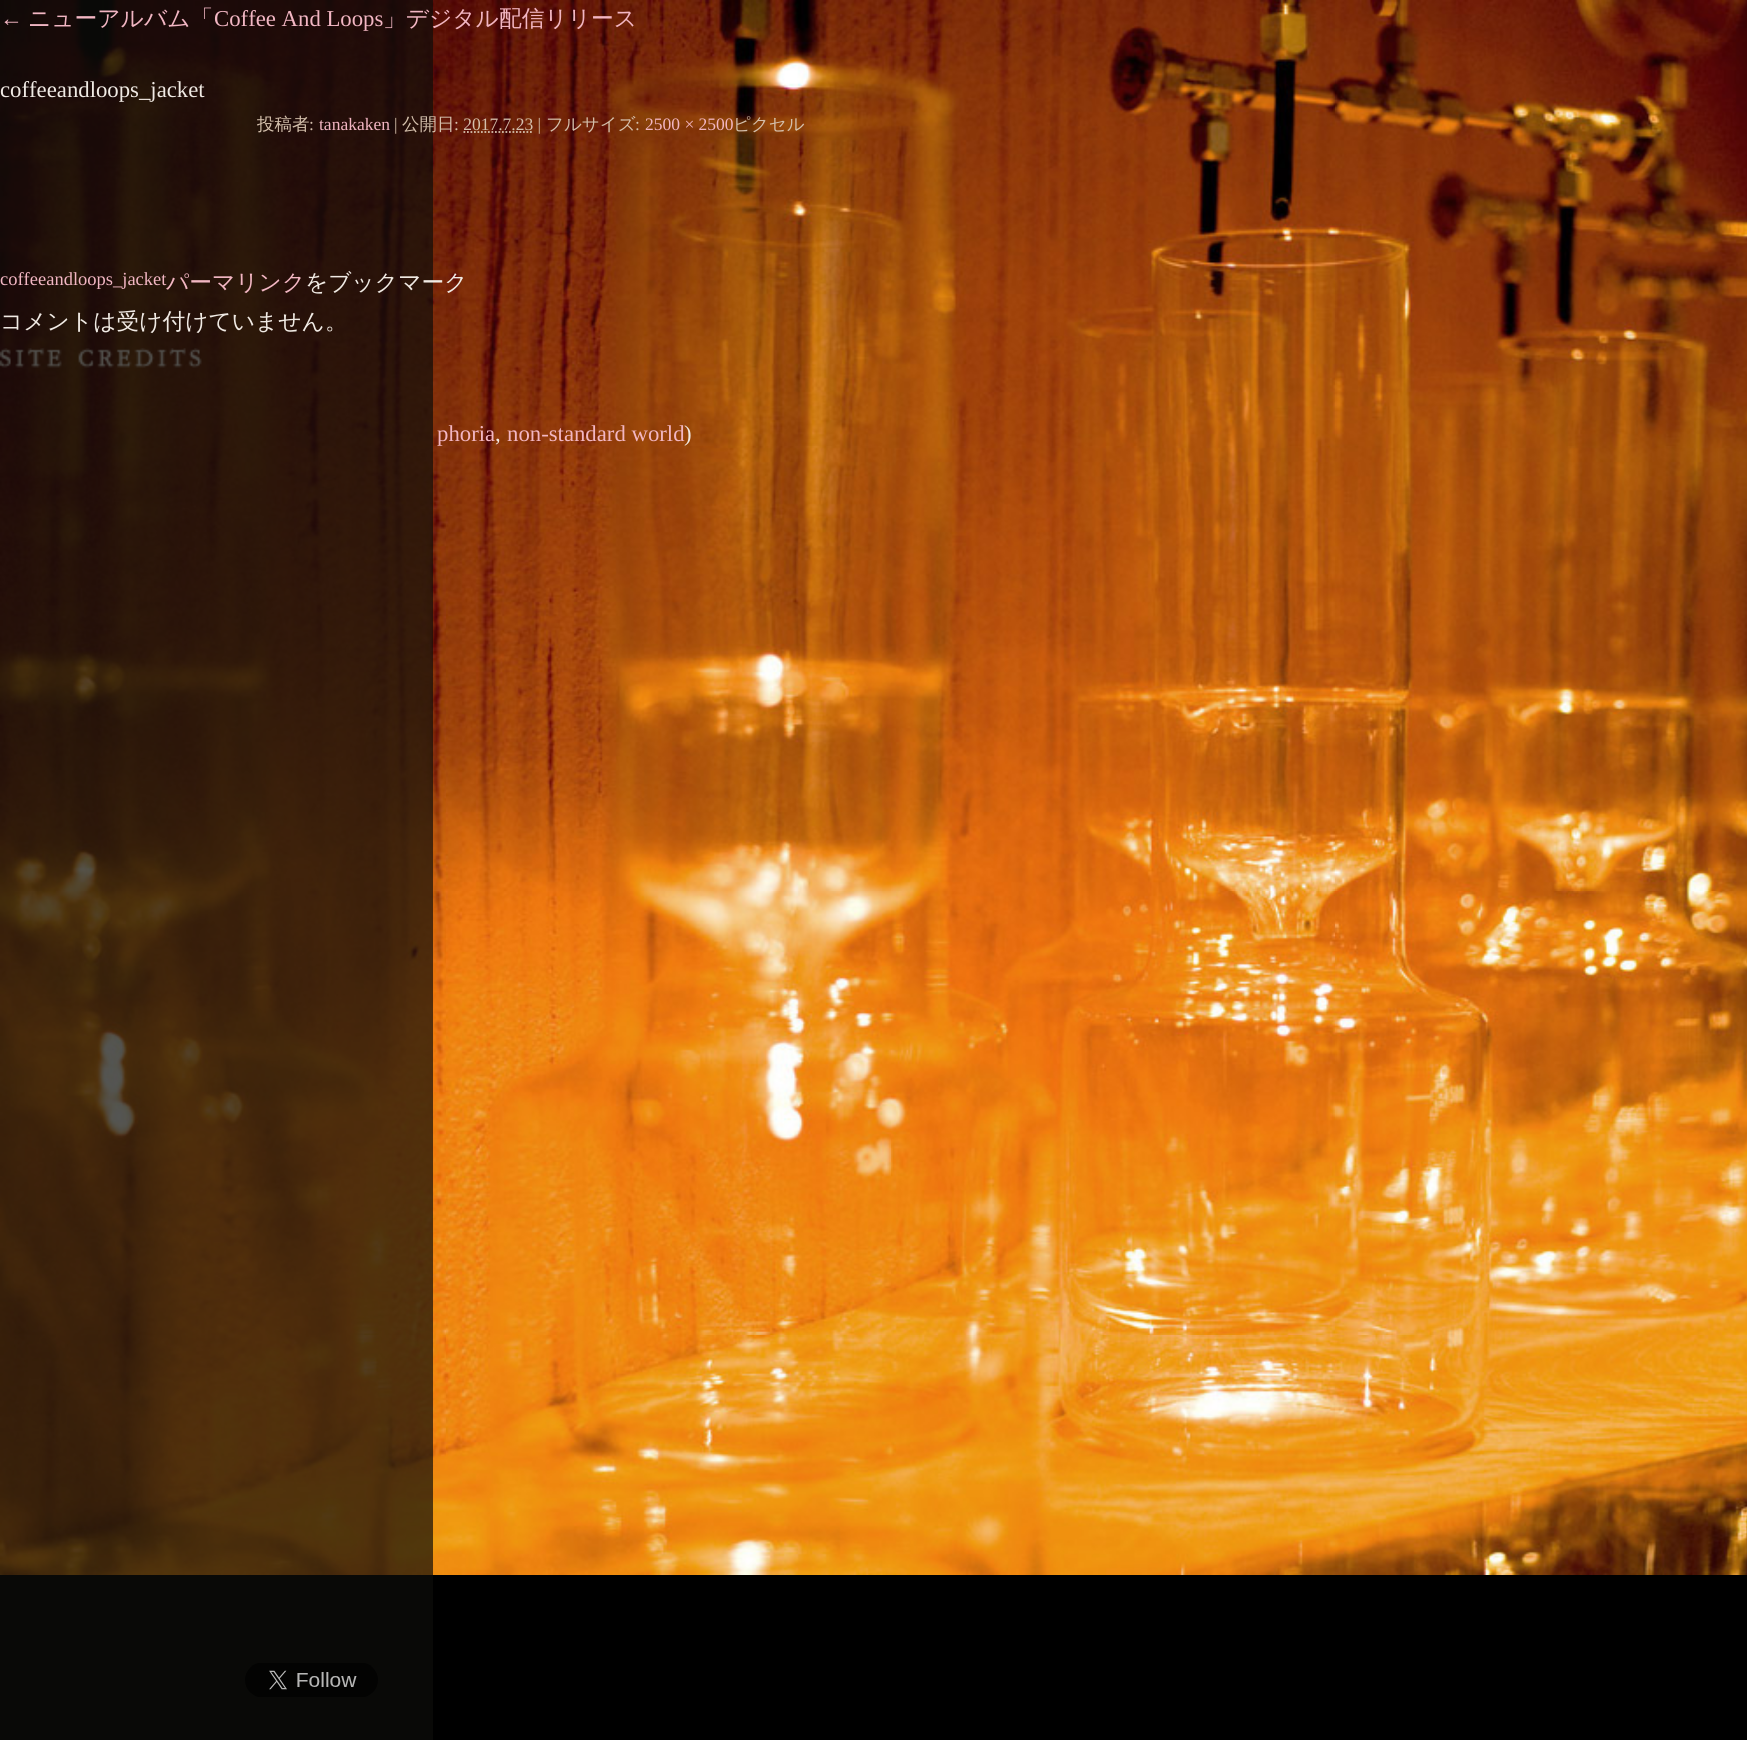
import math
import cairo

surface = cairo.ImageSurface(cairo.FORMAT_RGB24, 1747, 1740)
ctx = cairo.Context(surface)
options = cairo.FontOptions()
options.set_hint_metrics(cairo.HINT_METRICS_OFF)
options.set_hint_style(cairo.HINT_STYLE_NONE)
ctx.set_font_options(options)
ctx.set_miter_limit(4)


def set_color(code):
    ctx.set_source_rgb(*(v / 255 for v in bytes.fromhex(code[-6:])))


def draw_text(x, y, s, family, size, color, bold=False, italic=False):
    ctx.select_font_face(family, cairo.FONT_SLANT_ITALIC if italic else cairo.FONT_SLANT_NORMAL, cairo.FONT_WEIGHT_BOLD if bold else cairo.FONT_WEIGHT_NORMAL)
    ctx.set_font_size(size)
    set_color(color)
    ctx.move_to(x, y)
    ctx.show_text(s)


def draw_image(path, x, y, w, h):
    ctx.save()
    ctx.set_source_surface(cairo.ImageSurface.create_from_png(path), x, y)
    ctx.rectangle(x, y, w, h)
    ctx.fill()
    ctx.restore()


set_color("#000000")
ctx.paint()
draw_image("assets/img1.png", 0, 0, 1747, 1575)
draw_image("assets/img2.png", 0, 348, 202, 20)
ctx.set_source_rgba(0.055, 0.051, 0.043, 0.7)
ctx.rectangle(0, 0, 433, 1740)
ctx.fill()
draw_text(0, 26, "←", "Liberation Serif", 22.75, "#f2b6c3")
draw_text(28, 26, "ニューアルバム「", "WenQuanYi Zen Hei Medium", 22.75, "#f2b6c3")
draw_text(214, 26, "Coffee And Loops", "Liberation Serif", 22.75, "#f2b6c3")
draw_text(383, 26, "」デジタル配信リリース", "WenQuanYi Zen Hei Medium", 22.75, "#f2b6c3")
draw_text(0, 97, "coffeeandloops_jacket", "Liberation Serif", 22.75, "#f0eae4")
draw_text(257, 130, "投稿者", "WenQuanYi Zen Hei Medium", 17.5, "#d4c0ac")
draw_text(309, 130, ":", "Liberation Serif", 17.5, "#d4c0ac")
draw_text(319, 130, "tanakaken", "Liberation Serif", 17.5, "#f2b6c3")
draw_text(394, 130, "|", "Liberation Serif", 17.5, "#d4c0ac")
draw_text(402, 130, "公開日", "WenQuanYi Zen Hei Medium", 17.5, "#d4c0ac")
draw_text(454, 130, ": 2017.7.23 |", "Liberation Serif", 17.5, "#d4c0ac")
draw_text(546, 130, "フルサイズ", "WenQuanYi Zen Hei Medium", 17.5, "#d4c0ac")
draw_text(635, 130, ":", "Liberation Serif", 17.5, "#d4c0ac")
draw_text(645, 130, "2500 × 2500", "Liberation Serif", 17.5, "#f2b6c3")
draw_text(733, 130, "ピクセル", "WenQuanYi Zen Hei Medium", 17.5, "#d4c0ac")
ctx.new_path()
ctx.move_to(463.5, 132)
ctx.line_to(533.5, 132)
ctx.set_line_width(1.8)
ctx.set_dash([1.75, 1.75])
ctx.stroke()
draw_text(0, 285, "coffeeandloops_jacket", "Liberation Serif", 18.5, "#f2b6c3")
draw_text(166, 290, "パーマリンク", "WenQuanYi Zen Hei Medium", 22.75, "#f2b6c3")
draw_text(305, 290, "をブックマーク", "WenQuanYi Zen Hei Medium", 22.75, "#f0eae4")
draw_text(0, 329, "コメントは受け付けていません。", "WenQuanYi Zen Hei Medium", 22.75, "#f0eae4")
draw_text(437, 441, "phoria", "Liberation Serif", 22.75, "#f2b6c3")
draw_text(495, 441, ",", "Liberation Serif", 22.75, "#f0eae4")
draw_text(507, 441, "non-standard world", "Liberation Serif", 22.75, "#f2b6c3")
draw_text(684, 441, ")", "Liberation Serif", 22.75, "#f0eae4")
draw_image("assets/img3.png", 245, 1663, 133, 34)
surface.write_to_png("output.png")
